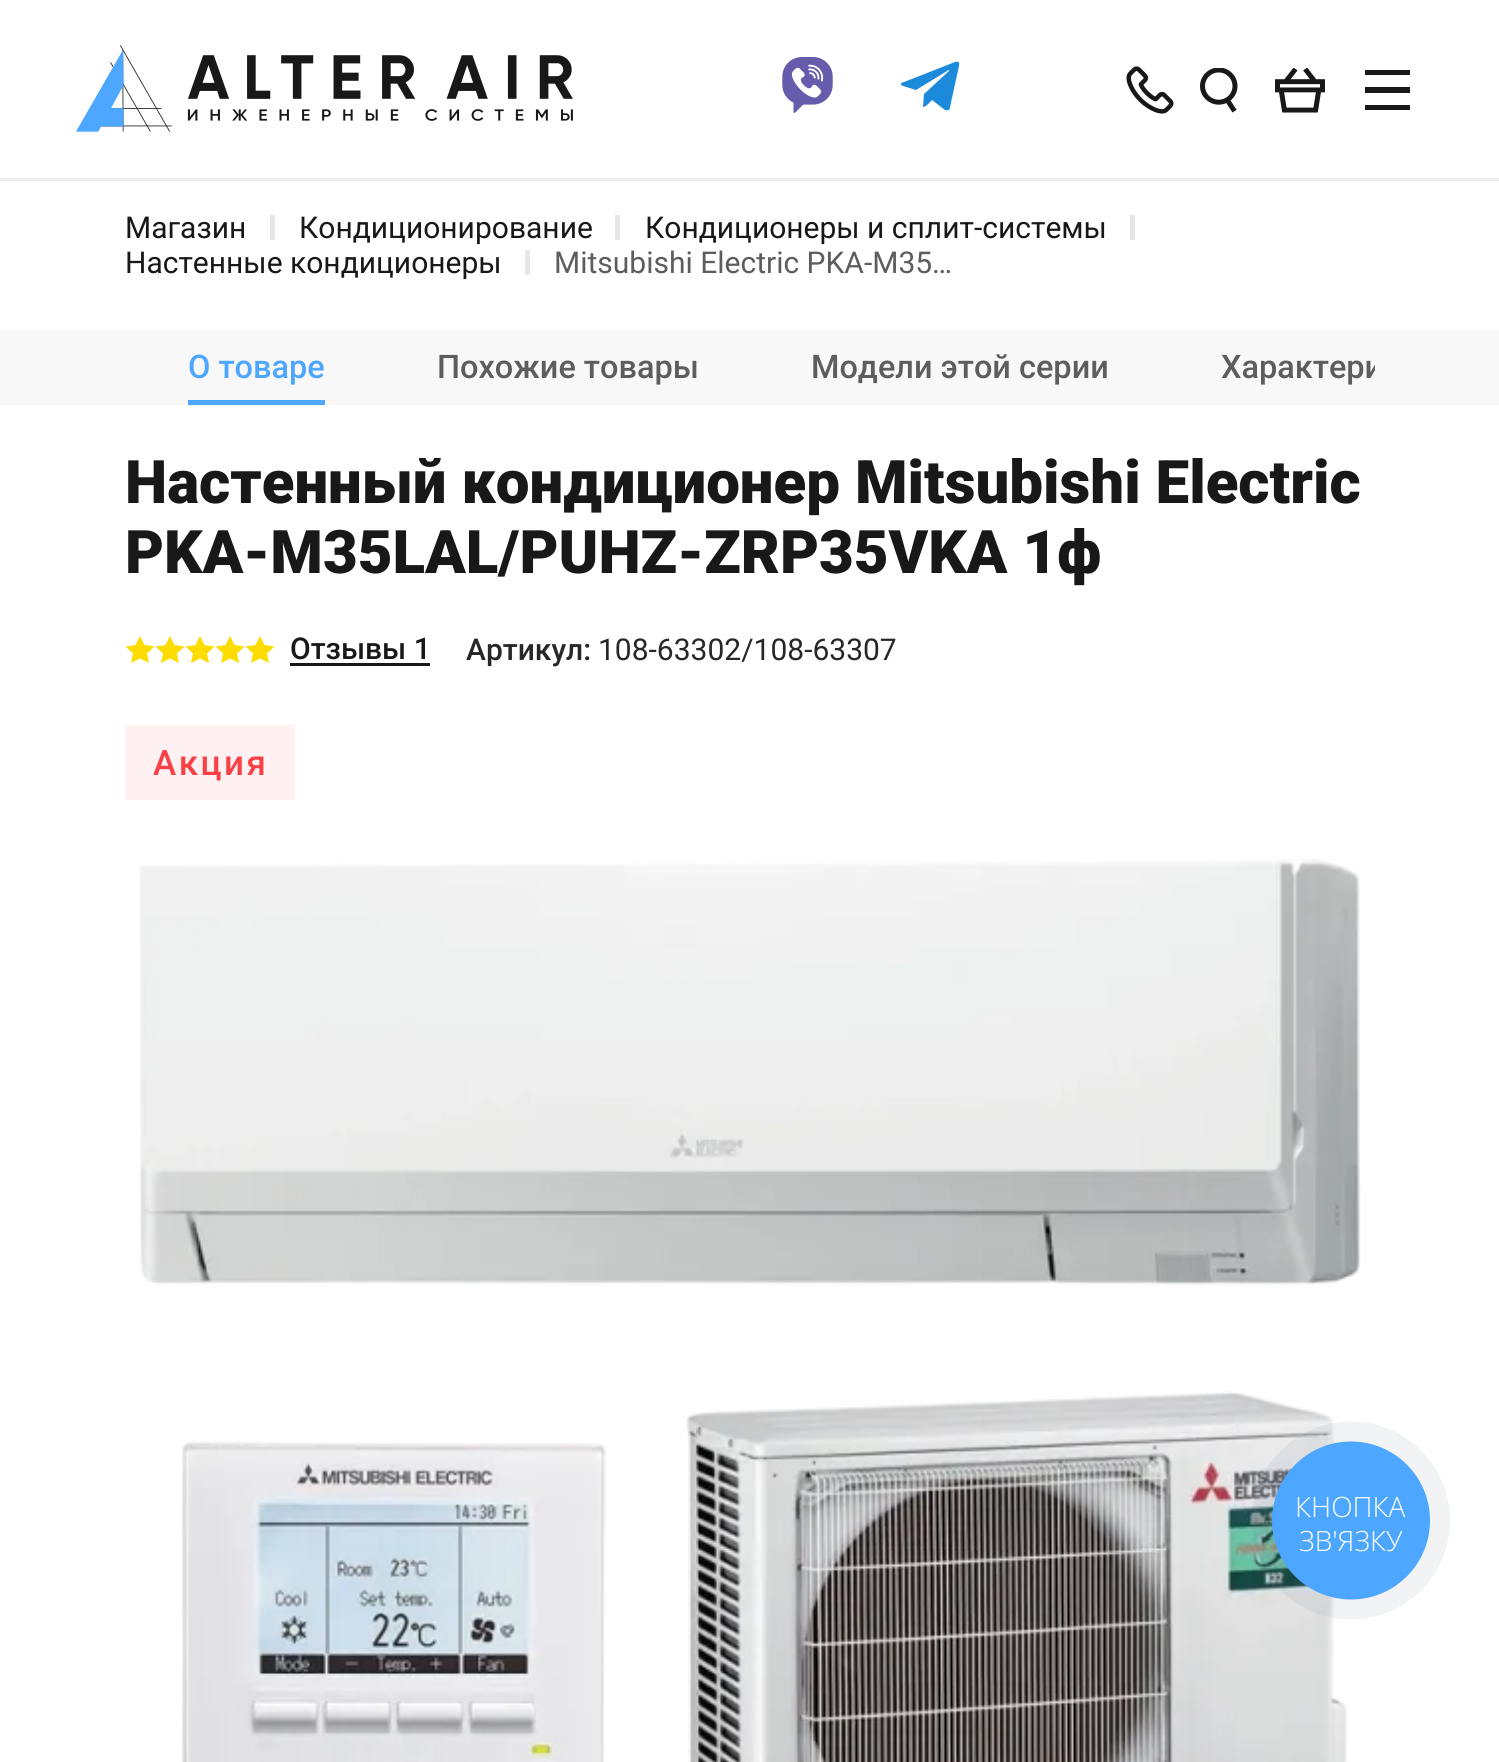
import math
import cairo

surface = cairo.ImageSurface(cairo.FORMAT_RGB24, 1499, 1762)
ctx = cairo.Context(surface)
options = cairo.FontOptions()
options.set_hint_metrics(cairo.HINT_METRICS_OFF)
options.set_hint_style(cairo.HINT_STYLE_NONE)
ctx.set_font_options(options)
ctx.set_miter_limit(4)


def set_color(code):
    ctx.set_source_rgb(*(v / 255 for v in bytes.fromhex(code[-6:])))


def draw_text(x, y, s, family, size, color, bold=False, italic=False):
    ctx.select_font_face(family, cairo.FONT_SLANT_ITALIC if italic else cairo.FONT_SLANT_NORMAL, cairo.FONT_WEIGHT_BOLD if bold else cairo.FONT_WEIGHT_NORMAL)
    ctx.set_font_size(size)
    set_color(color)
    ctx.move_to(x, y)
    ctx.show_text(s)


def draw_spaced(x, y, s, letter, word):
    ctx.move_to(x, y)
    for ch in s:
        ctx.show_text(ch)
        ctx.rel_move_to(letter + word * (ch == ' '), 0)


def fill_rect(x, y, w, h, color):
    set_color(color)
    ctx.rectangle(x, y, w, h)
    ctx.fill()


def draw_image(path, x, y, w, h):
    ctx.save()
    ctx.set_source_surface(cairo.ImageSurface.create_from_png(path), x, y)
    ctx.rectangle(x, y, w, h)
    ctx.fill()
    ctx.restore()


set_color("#ffffff")
ctx.paint()
draw_image("assets/img1.png", 76, 45, 497, 87)
draw_image("assets/img2.png", 782, 57, 51, 56)
set_color("#1c8adb")
ctx.new_path()
ctx.move_to(924, 94)
ctx.line_to(923, 107)
ctx.curve_to(926, 107, 930, 102, 932, 100)
ctx.line_to(945, 110)
ctx.curve_to(948, 111, 950, 110, 950, 107)
ctx.line_to(959, 66)
ctx.curve_to(960, 62, 958, 61, 955, 62)
ctx.line_to(904, 82)
ctx.curve_to(900, 83, 900, 85, 903, 86)
ctx.line_to(916, 90)
ctx.line_to(947, 71)
ctx.curve_to(948, 70, 950, 70, 949, 71)
ctx.close_path()
ctx.fill()
draw_image("assets/img3.png", 1126, 66, 48, 48)
draw_image("assets/img4.png", 1200, 68, 38, 45)
draw_image("assets/img5.png", 1275, 68, 50, 45)
set_color("#181818")
ctx.set_fill_rule(cairo.FILL_RULE_EVEN_ODD)
ctx.new_path()
ctx.move_to(1410, 75)
ctx.line_to(1365, 75)
ctx.line_to(1365, 70)
ctx.line_to(1410, 70)
ctx.close_path()
ctx.move_to(1410, 87)
ctx.line_to(1365, 87)
ctx.line_to(1365, 93)
ctx.line_to(1410, 93)
ctx.close_path()
ctx.move_to(1365, 105)
ctx.line_to(1410, 105)
ctx.line_to(1410, 110)
ctx.line_to(1365, 110)
ctx.close_path()
ctx.fill()
fill_rect(0, 178, 1499, 3, "#ededed")
draw_text(125, 238, "Магазин", "Roboto", 30, "#181818")
fill_rect(270, 215, 5, 25, "#e6e6e6")
draw_text(299, 238, "Кондиционирование", "Roboto", 30, "#181818")
fill_rect(615, 215, 5, 25, "#e6e6e6")
draw_text(645, 238, "Кондиционеры и сплит-системы", "Roboto", 30, "#181818")
fill_rect(1130, 215, 5, 25, "#e6e6e6")
draw_text(125, 273, "Настенные кондиционеры", "Roboto", 30, "#181818")
fill_rect(525, 250, 5, 25, "#e6e6e6")
draw_text(554, 273, "Mitsubishi Electric PKA-M35…", "Roboto", 30, "#5d5d5d")
fill_rect(0, 330, 1499, 75, "#f8f8f8")
draw_text(188, 378, "О товаре", "Roboto Medium", 32.5, "#4da6ff")
fill_rect(188, 400, 137, 5, "#4da6ff")
draw_text(437, 378, "Похожие товары", "Roboto Medium", 32.5, "#5d5d5d")
draw_text(811, 378, "Модели этой серии", "Roboto Medium", 32.5, "#5d5d5d")
ctx.save()
ctx.set_fill_rule(cairo.FILL_RULE_WINDING)
ctx.rectangle(125, 330, 1250, 75)
ctx.clip()
draw_text(1221, 378, "Характери", "Roboto Medium", 32.5, "#5d5d5d")
ctx.restore()
draw_text(125, 503, "Настенный кондиционер Mitsubishi Electric", "Roboto Black", 60, "#181818")
draw_text(125, 573, "PKA-M35LAL/PUHZ-ZRP35VKA 1ф", "Roboto Black", 60, "#181818")
set_color("#fddd00")
ctx.new_path()
ctx.move_to(140, 658.5)
ctx.line_to(131, 663)
ctx.line_to(133, 653.5)
ctx.line_to(125.5, 646.5)
ctx.line_to(135.5, 645)
ctx.line_to(140, 636)
ctx.line_to(144.5, 645)
ctx.line_to(154.5, 646.5)
ctx.line_to(147, 653.5)
ctx.line_to(149, 663)
ctx.close_path()
ctx.move_to(170, 658.5)
ctx.line_to(161, 663)
ctx.line_to(163, 653.5)
ctx.line_to(155.5, 646.5)
ctx.line_to(165.5, 645)
ctx.line_to(170, 636)
ctx.line_to(174.5, 645)
ctx.line_to(184.5, 646.5)
ctx.line_to(177, 653.5)
ctx.line_to(179, 663)
ctx.close_path()
ctx.fill()
ctx.new_path()
ctx.move_to(200, 658.5)
ctx.line_to(191, 663)
ctx.line_to(193, 653.5)
ctx.line_to(185.5, 646.5)
ctx.line_to(195.5, 645)
ctx.line_to(200, 636)
ctx.line_to(204.5, 645)
ctx.line_to(214.5, 646.5)
ctx.line_to(207, 653.5)
ctx.line_to(209, 663)
ctx.close_path()
ctx.move_to(230, 658.5)
ctx.line_to(221, 663)
ctx.line_to(223, 653.5)
ctx.line_to(215.5, 646.5)
ctx.line_to(225.5, 645)
ctx.line_to(230, 636)
ctx.line_to(234.5, 645)
ctx.line_to(244.5, 646.5)
ctx.line_to(237, 653.5)
ctx.line_to(239, 663)
ctx.close_path()
ctx.fill()
ctx.new_path()
ctx.move_to(260, 658.5)
ctx.line_to(251, 663)
ctx.line_to(253, 653.5)
ctx.line_to(245.5, 646.5)
ctx.line_to(255.5, 645)
ctx.line_to(260, 636)
ctx.line_to(264.5, 645)
ctx.line_to(274.5, 646.5)
ctx.line_to(267, 653.5)
ctx.line_to(269, 663)
ctx.close_path()
ctx.fill()
draw_text(290, 659, "Отзывы 1", "Roboto Medium", 30, "#181818")
fill_rect(290, 663, 140, 3, "#181818")
draw_text(466, 660, "Aртикул:", "Roboto Medium", 30, "#272727")
draw_text(598, 660, "108-63302/108-63307", "Roboto", 30, "#272727")
fill_rect(125, 725, 170, 75, "#fff1f2")
ctx.select_font_face("Roboto Medium")
ctx.set_font_size(35)
set_color("#f84147")
draw_spaced(153, 775, "Акция", 2.5, 0)
draw_image("assets/img6.png", 139, 858, 1222, 904)
ctx.set_source_rgba(0.165, 0.251, 0.365, 0.06)
ctx.arc(1351, 1520.5, 99, 0, 2 * math.pi)
ctx.fill()
set_color("#4da6ff")
ctx.arc(1351, 1520.5, 79, 0, 2 * math.pi)
ctx.fill()
draw_text(1295, 1517, "КНОПКА", "Open Sans Light", 28, "#ffffff")
draw_text(1299, 1551, "ЗВ'ЯЗКУ", "Open Sans Light", 28, "#ffffff")
surface.write_to_png("output.png")
